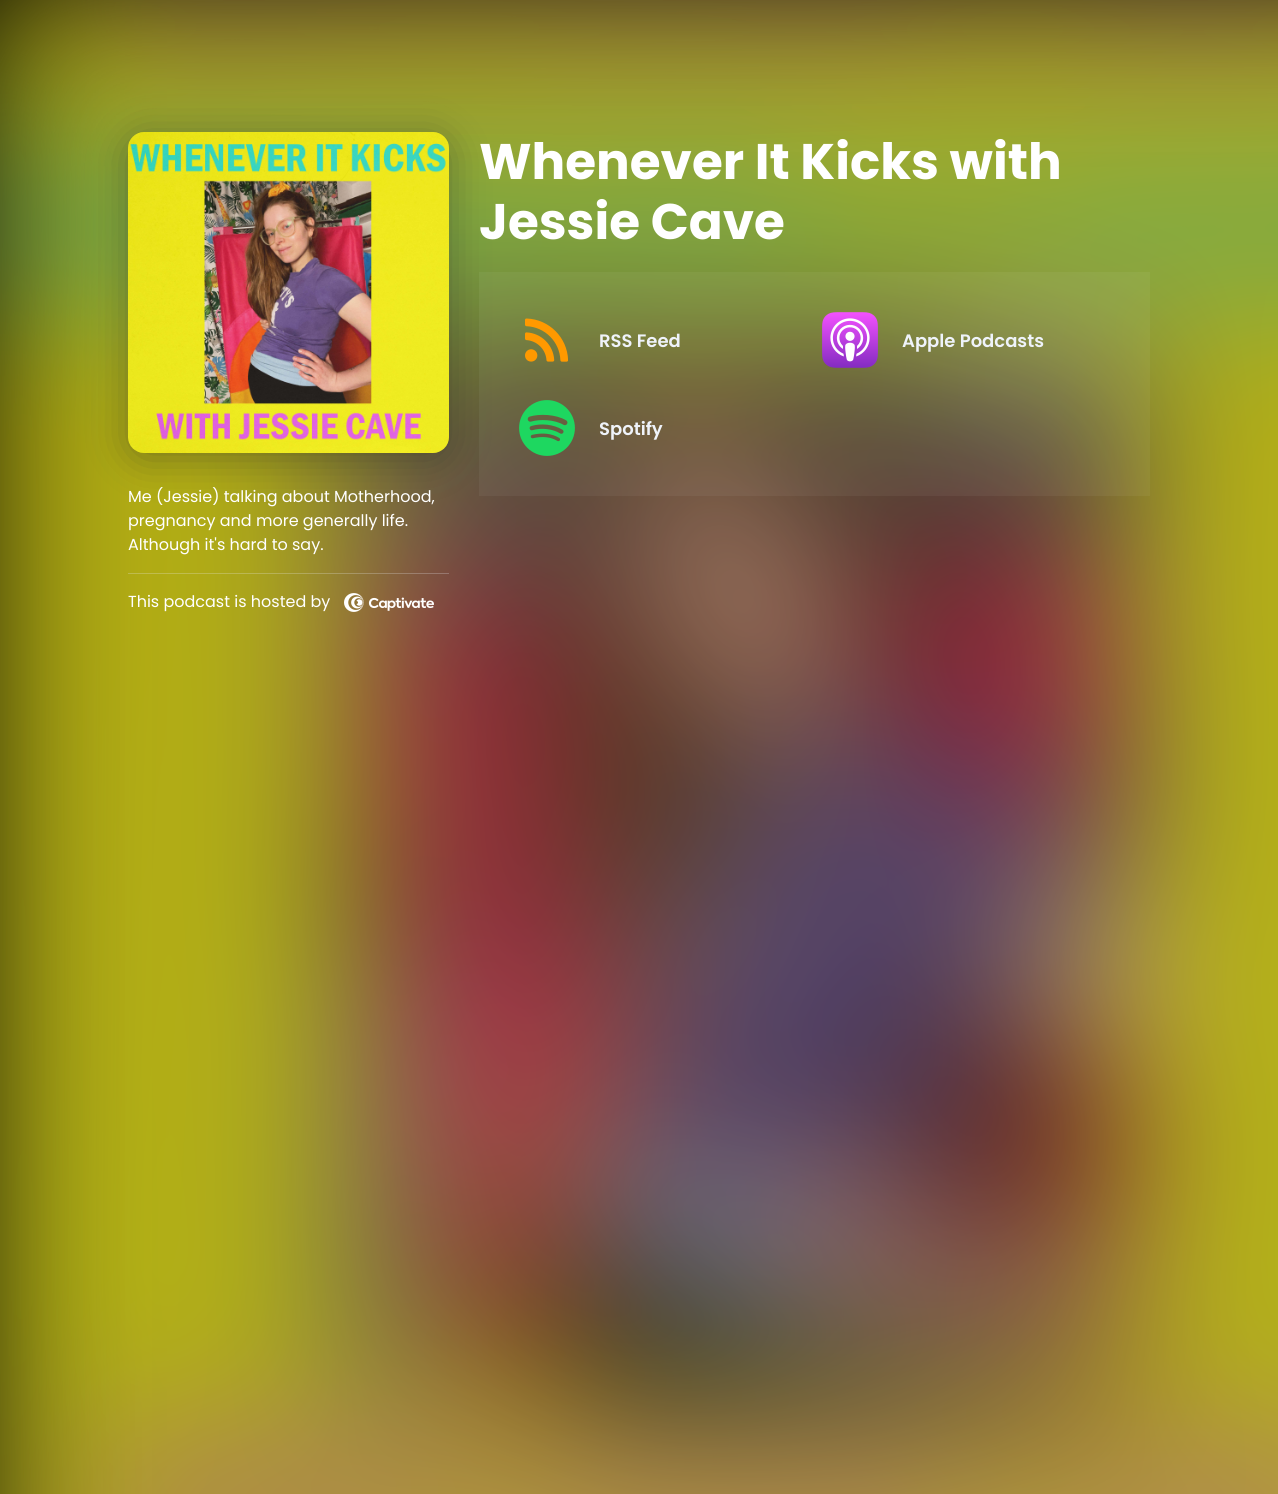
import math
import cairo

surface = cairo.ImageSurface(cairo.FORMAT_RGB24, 1278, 1494)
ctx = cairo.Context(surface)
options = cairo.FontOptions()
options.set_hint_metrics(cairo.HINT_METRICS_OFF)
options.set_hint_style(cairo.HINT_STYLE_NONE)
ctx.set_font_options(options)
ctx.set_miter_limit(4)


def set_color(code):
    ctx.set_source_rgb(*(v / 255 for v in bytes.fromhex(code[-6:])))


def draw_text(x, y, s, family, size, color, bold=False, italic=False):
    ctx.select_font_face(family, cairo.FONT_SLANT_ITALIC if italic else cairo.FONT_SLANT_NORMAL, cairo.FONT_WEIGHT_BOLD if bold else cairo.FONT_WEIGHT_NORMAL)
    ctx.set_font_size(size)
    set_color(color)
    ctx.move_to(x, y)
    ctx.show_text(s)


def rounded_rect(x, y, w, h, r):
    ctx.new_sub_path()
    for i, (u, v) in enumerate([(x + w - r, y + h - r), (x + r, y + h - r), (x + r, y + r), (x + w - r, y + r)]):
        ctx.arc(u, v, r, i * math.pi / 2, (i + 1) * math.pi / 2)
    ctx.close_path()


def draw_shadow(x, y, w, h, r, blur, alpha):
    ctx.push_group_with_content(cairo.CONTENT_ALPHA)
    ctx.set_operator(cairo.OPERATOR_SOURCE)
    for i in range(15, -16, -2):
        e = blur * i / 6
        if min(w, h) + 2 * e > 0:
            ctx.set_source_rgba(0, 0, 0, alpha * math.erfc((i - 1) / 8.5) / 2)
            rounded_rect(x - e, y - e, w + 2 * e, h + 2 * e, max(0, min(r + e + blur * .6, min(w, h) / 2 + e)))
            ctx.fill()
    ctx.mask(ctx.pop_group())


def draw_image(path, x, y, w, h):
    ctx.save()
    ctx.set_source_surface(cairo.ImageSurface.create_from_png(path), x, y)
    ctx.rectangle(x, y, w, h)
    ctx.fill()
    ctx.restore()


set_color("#000000")
ctx.paint()
draw_image("assets/img1.png", 0, 0, 1278, 1494)
set_color("#1f2124")
draw_shadow(128, 138, 321, 321, 16, 20, 0.38)
draw_text(479, 179, "Whenever It Kicks with", "Poppins", 50, "#ffffff", bold=True)
draw_text(479, 239, "Jessie Cave", "Poppins", 50, "#ffffff", bold=True)
ctx.set_source_rgba(1, 1, 1, 0.05)
ctx.rectangle(479, 272, 671, 224)
ctx.fill()
draw_image("assets/img2.png", 525, 318, 43, 44)
draw_text(599, 347, "RSS Feed", "Poppins SemiBold", 18, "#eff3fa")
draw_image("assets/img3.png", 822, 312, 56, 56)
draw_text(902, 347, "Apple Podcasts", "Poppins SemiBold", 18, "#eff3fa")
draw_image("assets/img4.png", 519, 400, 56, 56)
draw_text(599, 435, "Spotify", "Poppins SemiBold", 18, "#eff3fa")
draw_image("assets/img5.png", 128, 132, 321, 321)
draw_text(128, 502, "Me (Jessie) talking about Motherhood,", "Poppins", 16, "#ffffff")
draw_text(128, 526, "pregnancy and more generally life.", "Poppins", 16, "#ffffff")
draw_text(128, 550, "Although it's hard to say.", "Poppins", 16, "#ffffff")
ctx.set_source_rgba(0.937, 0.953, 0.98, 0.25)
ctx.rectangle(128, 573, 321, 1)
ctx.fill()
draw_text(128, 607, "This podcast is hosted by", "Poppins", 16, "#ffffff")
draw_image("assets/img6.png", 344, 593, 90, 19)
surface.write_to_png("output.png")
